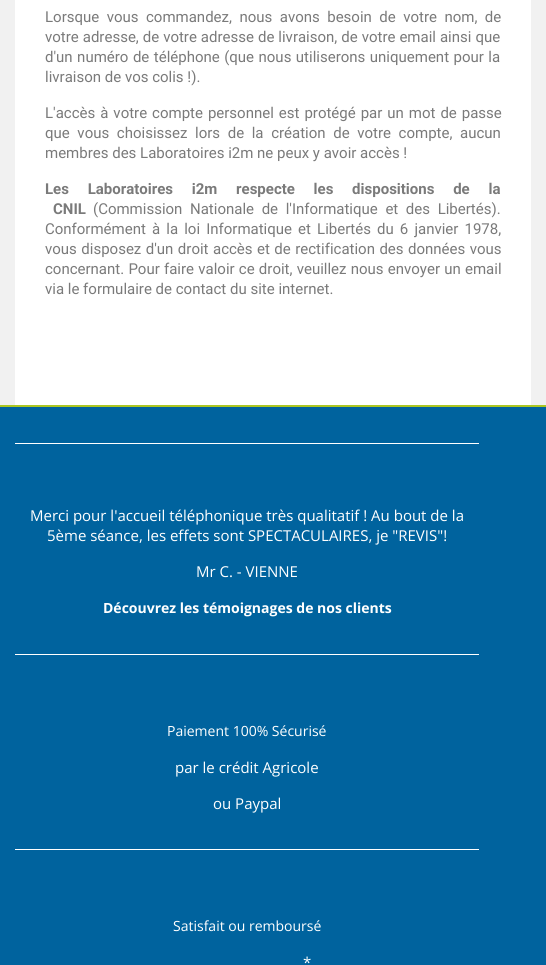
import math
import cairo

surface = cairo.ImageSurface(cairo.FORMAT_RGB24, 546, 965)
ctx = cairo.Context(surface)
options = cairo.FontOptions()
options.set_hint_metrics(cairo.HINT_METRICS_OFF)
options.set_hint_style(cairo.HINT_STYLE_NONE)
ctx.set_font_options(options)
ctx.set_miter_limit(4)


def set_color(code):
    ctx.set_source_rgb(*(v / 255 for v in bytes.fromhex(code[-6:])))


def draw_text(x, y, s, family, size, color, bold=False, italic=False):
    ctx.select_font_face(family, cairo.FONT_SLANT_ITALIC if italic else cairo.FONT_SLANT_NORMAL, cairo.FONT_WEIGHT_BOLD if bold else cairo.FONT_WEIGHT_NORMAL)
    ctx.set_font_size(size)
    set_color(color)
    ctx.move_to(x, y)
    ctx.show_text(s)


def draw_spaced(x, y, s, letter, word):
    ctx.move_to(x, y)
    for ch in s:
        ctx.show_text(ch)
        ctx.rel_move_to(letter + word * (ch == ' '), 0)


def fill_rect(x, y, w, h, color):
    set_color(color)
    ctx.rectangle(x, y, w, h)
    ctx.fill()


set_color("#f1f1f1")
ctx.paint()
fill_rect(15, 0, 516, 405, "#ffffff")
ctx.select_font_face("Roboto")
ctx.set_font_size(15)
set_color("#7a7a7a")
draw_spaced(45, 22, "Lorsque vous commandez, nous avons besoin de votre nom, de", 0, 3.75)
draw_spaced(45, 42, "votre adresse, de votre adresse de livraison, de votre email ainsi que", 0, 0.25)
draw_spaced(45, 62, "d'un numéro de téléphone (que nous utiliserons uniquement pour la", 0, 0.75)
draw_text(45, 82, "livraison de vos colis !).", "Roboto", 15, "#7a7a7a")
draw_spaced(45, 118, "L'accès à votre compte personnel est protégé par un mot de passe", 0, 1.25)
draw_spaced(45, 138, "que vous choisissez lors de la création de votre compte, aucun", 0, 3.9)
draw_text(45, 158, "membres des Laboratoires i2m ne peux y avoir accès !", "Roboto", 15, "#7a7a7a")
ctx.select_font_face("Roboto", cairo.FONT_SLANT_NORMAL, cairo.FONT_WEIGHT_BOLD)
draw_spaced(45, 194, "Les Laboratoires i2m respecte les dispositions de la", 0, 15)
draw_text(53, 214, "CNIL", "Roboto", 15, "#7a7a7a", bold=True)
ctx.select_font_face("Roboto")
draw_spaced(93, 214, "(Commission Nationale de l'Informatique et des Libertés).", 0, 3.9)
draw_spaced(45, 234, "Conformément à la loi Informatique et Libertés du 6 janvier 1978,", 0, 2.4)
draw_spaced(45, 254, "vous disposez d'un droit accès et de rectification des données vous", 0, 0.75)
draw_spaced(45, 274, "concernant. Pour faire valoir ce droit, veuillez nous envoyer un email", 0, 0.5)
draw_text(45, 294, "via le formulaire de contact du site internet.", "Roboto", 15, "#7a7a7a")
fill_rect(0, 407, 546, 558, "#00639e")
fill_rect(0, 405, 546, 2, "#abc621")
fill_rect(15, 443, 464, 1, "#ffffff")
draw_text(30, 521, "Merci pour l'accueil téléphonique très qualitatif ! Au bout de la", "Open Sans", 15, "#ffffff")
draw_text(47, 541, "5ème séance, les effets sont SPECTACULAIRES, je \"REVIS\"!", "Open Sans", 15, "#ffffff")
draw_text(196, 577, "Mr C. - VIENNE", "Open Sans", 15, "#ffffff")
draw_text(103, 613, "Découvrez les témoignages de nos clients", "Open Sans", 14, "#ffffff", bold=True)
fill_rect(15, 654, 464, 1, "#ffffff")
draw_text(167, 736, "Paiement 100% Sécurisé", "Open Sans", 14, "#ffffff")
draw_text(175, 773, "par le crédit Agricole", "Open Sans", 15, "#ffffff")
draw_text(213, 809, "ou Paypal", "Open Sans", 15, "#ffffff")
fill_rect(15, 849, 464, 1, "#ffffff")
draw_text(173, 931, "Satisfait ou remboursé", "Open Sans", 14, "#ffffff")
draw_text(303, 968, "*", "Open Sans", 15, "#ffffff")
surface.write_to_png("output.png")
